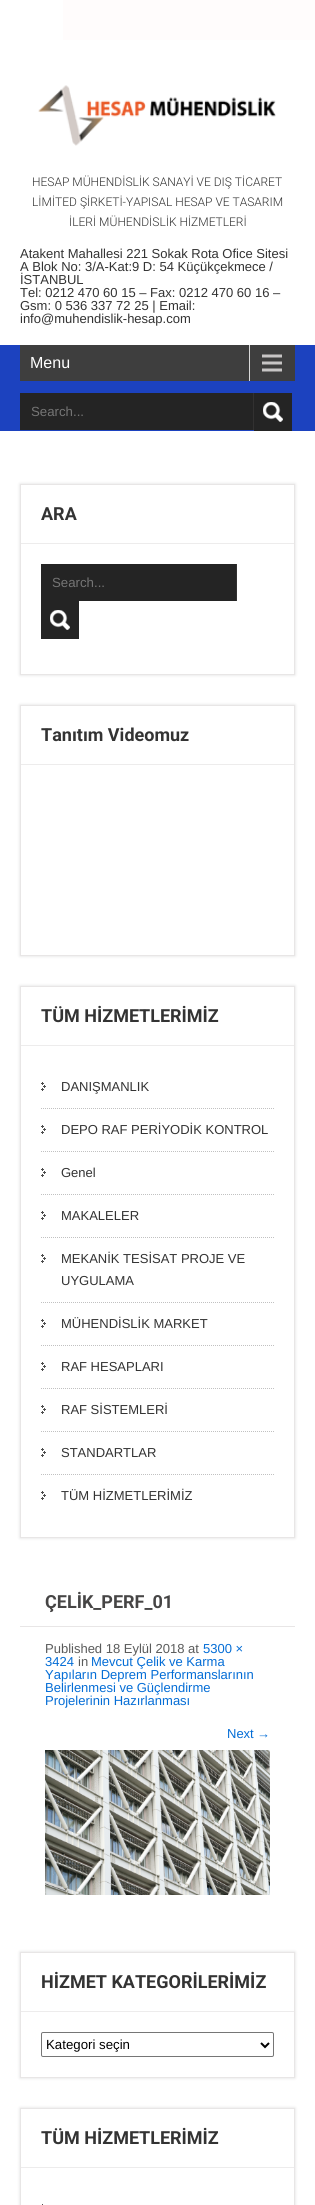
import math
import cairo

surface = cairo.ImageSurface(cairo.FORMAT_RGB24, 315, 2205)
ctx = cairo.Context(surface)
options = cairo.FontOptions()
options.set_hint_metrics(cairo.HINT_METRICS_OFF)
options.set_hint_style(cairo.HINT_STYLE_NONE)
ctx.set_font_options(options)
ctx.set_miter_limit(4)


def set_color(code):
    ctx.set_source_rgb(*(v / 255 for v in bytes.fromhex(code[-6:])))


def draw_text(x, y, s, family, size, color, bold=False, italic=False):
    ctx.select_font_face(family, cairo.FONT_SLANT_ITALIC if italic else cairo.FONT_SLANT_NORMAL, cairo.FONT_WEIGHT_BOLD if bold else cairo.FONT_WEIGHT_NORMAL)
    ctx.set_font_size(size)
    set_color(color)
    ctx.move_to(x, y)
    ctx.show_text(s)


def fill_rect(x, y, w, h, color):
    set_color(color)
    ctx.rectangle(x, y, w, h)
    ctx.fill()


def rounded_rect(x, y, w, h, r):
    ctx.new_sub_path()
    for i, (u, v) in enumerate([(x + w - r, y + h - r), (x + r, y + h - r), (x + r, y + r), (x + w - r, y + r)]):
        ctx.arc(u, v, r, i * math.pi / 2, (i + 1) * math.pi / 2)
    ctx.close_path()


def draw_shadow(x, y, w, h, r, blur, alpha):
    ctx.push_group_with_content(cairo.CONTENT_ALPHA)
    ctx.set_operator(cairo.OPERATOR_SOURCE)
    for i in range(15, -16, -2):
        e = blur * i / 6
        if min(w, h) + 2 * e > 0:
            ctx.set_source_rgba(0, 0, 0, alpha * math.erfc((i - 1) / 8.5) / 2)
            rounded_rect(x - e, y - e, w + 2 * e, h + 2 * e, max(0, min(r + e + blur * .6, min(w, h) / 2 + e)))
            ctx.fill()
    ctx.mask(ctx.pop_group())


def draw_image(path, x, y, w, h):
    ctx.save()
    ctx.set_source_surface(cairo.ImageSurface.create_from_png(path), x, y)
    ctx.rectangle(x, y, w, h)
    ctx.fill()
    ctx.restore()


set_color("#ffffff")
ctx.paint()
fill_rect(63, 0, 252, 40, "#fffcfc")
draw_image("assets/img1.png", 38, 85, 238, 61)
draw_text(32, 186, "HESAP MÜHENDİSLİK SANAYİ VE DIŞ TİCARET", "Roboto Light", 12, "#333333")
draw_text(32, 206, "LİMİTED ŞİRKETİ-YAPISAL HESAP VE TASARIM", "Roboto Light", 12, "#333333")
draw_text(69, 226, "İLERİ MÜHENDİSLİK HİZMETLERİ", "Roboto Light", 12, "#333333")
draw_text(20, 258, "Atakent Mahallesi 221 Sokak Rota Ofice Sitesi", "Arimo", 13, "#333333")
draw_text(20, 271, "A Blok No: 3/A-Kat:9 D: 54 Küçükçekmece /", "Arimo", 13, "#333333")
draw_text(20, 284, "İSTANBUL", "Arimo", 13, "#333333")
draw_text(20, 297, "Tel: 0212 470 60 15 – Fax: 0212 470 60 16 –", "Arimo", 13, "#333333")
draw_text(20, 310, "Gsm: 0 536 337 72 25 | Email:", "Arimo", 13, "#333333")
draw_text(20, 323, "info@muhendislik-hesap.com", "Arimo", 13, "#333333")
fill_rect(0, 345, 315, 86, "#1c42bf")
fill_rect(20, 345, 275, 36, "#3e3e3e")
draw_image("assets/img2.png", 249, 345, 33, 36)
draw_text(30, 368, "Menu", "Arimo", 16, "#ffffff")
fill_rect(20, 393, 233, 37, "#242424")
fill_rect(253, 393, 1, 37, "#323131")
draw_text(31, 416, "Search...", "Liberation Sans", 13.25, "#757575")
fill_rect(254, 393, 38, 38, "#242424")
draw_image("assets/img3.png", 263, 402, 20, 20)
ctx.save()
ctx.set_fill_rule(cairo.FILL_RULE_EVEN_ODD)
ctx.new_path()
ctx.move_to(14, 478)
ctx.line_to(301, 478)
ctx.line_to(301, 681)
ctx.line_to(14, 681)
ctx.close_path()
ctx.move_to(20, 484)
ctx.line_to(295, 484)
ctx.line_to(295, 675)
ctx.line_to(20, 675)
ctx.close_path()
ctx.clip()
set_color("#dddcdc")
draw_shadow(20, 484, 275, 191, 0, 1.5, 1)
ctx.restore()
ctx.rectangle(20.5, 484.5, 274, 190)
set_color("#e8e6e6")
ctx.set_line_width(1)
ctx.stroke()
fill_rect(21, 543, 273, 1, "#edecec")
draw_text(41, 520, "ARA", "Roboto", 18, "#333333", bold=True)
fill_rect(41, 564, 195, 37, "#242424")
fill_rect(236, 564, 1, 37, "#323131")
draw_text(52, 587, "Search...", "Liberation Sans", 13.25, "#757575")
fill_rect(41, 601, 38, 38, "#242424")
draw_image("assets/img3.png", 50, 610, 20, 20)
ctx.save()
ctx.set_fill_rule(cairo.FILL_RULE_EVEN_ODD)
ctx.new_path()
ctx.move_to(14, 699)
ctx.line_to(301, 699)
ctx.line_to(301, 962)
ctx.line_to(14, 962)
ctx.close_path()
ctx.move_to(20, 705)
ctx.line_to(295, 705)
ctx.line_to(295, 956)
ctx.line_to(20, 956)
ctx.close_path()
ctx.clip()
set_color("#dddcdc")
draw_shadow(20, 705, 275, 251, 0, 1.5, 1)
ctx.restore()
ctx.rectangle(20.5, 705.5, 274, 250)
set_color("#e8e6e6")
ctx.stroke()
fill_rect(21, 764, 273, 1, "#edecec")
draw_text(41, 741, "Tanıtım Videomuz", "Roboto", 18, "#333333", bold=True)
ctx.save()
ctx.set_fill_rule(cairo.FILL_RULE_EVEN_ODD)
ctx.new_path()
ctx.move_to(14, 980)
ctx.line_to(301, 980)
ctx.line_to(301, 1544)
ctx.line_to(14, 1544)
ctx.close_path()
ctx.move_to(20, 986)
ctx.line_to(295, 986)
ctx.line_to(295, 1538)
ctx.line_to(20, 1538)
ctx.close_path()
ctx.clip()
set_color("#dddcdc")
draw_shadow(20, 986, 275, 552, 0, 1.5, 1)
ctx.restore()
ctx.rectangle(20.5, 986.5, 274, 551)
set_color("#e8e6e6")
ctx.stroke()
fill_rect(21, 1045, 273, 1, "#edecec")
draw_text(41, 1022, "TÜM HİZMETLERİMİZ", "Roboto", 18, "#333333", bold=True)
draw_image("assets/img4.png", 41, 1082, 5, 9)
ctx.new_path()
ctx.move_to(41, 1108.5)
ctx.line_to(274, 1108.5)
set_color("#c1c1c1")
ctx.set_dash([1, 1])
ctx.stroke()
draw_text(61, 1091, "DANIŞMANLIK", "Arimo", 13, "#333333")
draw_image("assets/img4.png", 41, 1125, 5, 9)
ctx.new_path()
ctx.move_to(41, 1151.5)
ctx.line_to(274, 1151.5)
set_color("#c1c1c1")
ctx.stroke()
draw_text(61, 1134, "DEPO RAF PERİYODİK KONTROL", "Arimo", 13, "#333333")
draw_image("assets/img4.png", 41, 1168, 5, 9)
ctx.new_path()
ctx.move_to(41, 1194.5)
ctx.line_to(274, 1194.5)
set_color("#c1c1c1")
ctx.stroke()
draw_text(61, 1177, "Genel", "Arimo", 13, "#333333")
draw_image("assets/img4.png", 41, 1211, 5, 9)
ctx.new_path()
ctx.move_to(41, 1237.5)
ctx.line_to(274, 1237.5)
set_color("#c1c1c1")
ctx.stroke()
draw_text(61, 1220, "MAKALELER", "Arimo", 13, "#333333")
draw_image("assets/img4.png", 41, 1254, 5, 9)
ctx.new_path()
ctx.move_to(41, 1302.5)
ctx.line_to(274, 1302.5)
set_color("#c1c1c1")
ctx.stroke()
draw_text(61, 1263, "MEKANİK TESİSAT PROJE VE", "Arimo", 13, "#333333")
draw_text(61, 1285, "UYGULAMA", "Arimo", 13, "#333333")
draw_image("assets/img4.png", 41, 1319, 5, 9)
ctx.new_path()
ctx.move_to(41, 1345.5)
ctx.line_to(274, 1345.5)
set_color("#c1c1c1")
ctx.stroke()
draw_text(61, 1328, "MÜHENDİSLİK MARKET", "Arimo", 13, "#333333")
draw_image("assets/img4.png", 41, 1362, 5, 9)
ctx.new_path()
ctx.move_to(41, 1388.5)
ctx.line_to(274, 1388.5)
set_color("#c1c1c1")
ctx.stroke()
draw_text(61, 1371, "RAF HESAPLARI", "Arimo", 13, "#333333")
draw_image("assets/img4.png", 41, 1405, 5, 9)
ctx.new_path()
ctx.move_to(41, 1431.5)
ctx.line_to(274, 1431.5)
set_color("#c1c1c1")
ctx.stroke()
draw_text(61, 1414, "RAF SİSTEMLERİ", "Arimo", 13, "#333333")
draw_image("assets/img4.png", 41, 1448, 5, 9)
ctx.new_path()
ctx.move_to(41, 1474.5)
ctx.line_to(274, 1474.5)
set_color("#c1c1c1")
ctx.stroke()
draw_text(61, 1457, "STANDARTLAR", "Arimo", 13, "#333333")
draw_image("assets/img4.png", 41, 1491, 5, 9)
draw_text(61, 1500, "TÜM HİZMETLERİMİZ", "Arimo", 13, "#333333")
fill_rect(20, 1626, 275, 1, "#e8e6e6")
draw_text(45, 1608, "ÇELİK_PERF_01", "Roboto", 18, "#464545", bold=True)
draw_text(45, 1653, "Published 18 Eylül 2018 at", "Arimo", 13, "#5a5b5b")
draw_text(203, 1653, "5300 ×", "Arimo", 13, "#046dd6")
draw_text(45, 1666, "3424", "Arimo", 13, "#046dd6")
draw_text(78, 1666, "in", "Arimo", 13, "#5a5b5b")
draw_text(91, 1666, "Mevcut Çelik ve Karma", "Arimo", 13, "#046dd6")
draw_text(45, 1679, "Yapıların Deprem Performanslarının", "Arimo", 13, "#046dd6")
draw_text(45, 1692, "Belirlenmesi ve Güçlendirme", "Arimo", 13, "#046dd6")
draw_text(45, 1705, "Projelerinin Hazırlanması", "Arimo", 13, "#046dd6")
draw_text(227, 1738, "Next", "Arimo", 13, "#046dd6")
draw_text(257, 1738, "→", "Liberation Serif", 13, "#046dd6")
draw_image("assets/img5.png", 45, 1750, 225, 145)
ctx.save()
ctx.set_fill_rule(cairo.FILL_RULE_EVEN_ODD)
ctx.new_path()
ctx.move_to(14, 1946)
ctx.line_to(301, 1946)
ctx.line_to(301, 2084)
ctx.line_to(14, 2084)
ctx.close_path()
ctx.move_to(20, 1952)
ctx.line_to(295, 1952)
ctx.line_to(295, 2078)
ctx.line_to(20, 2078)
ctx.close_path()
ctx.clip()
set_color("#dddcdc")
draw_shadow(20, 1952, 275, 126, 0, 1.5, 1)
ctx.restore()
ctx.rectangle(20.5, 1952.5, 274, 125)
set_color("#e8e6e6")
ctx.set_dash([])
ctx.stroke()
fill_rect(21, 2011, 273, 1, "#edecec")
draw_text(41, 1988, "HİZMET KATEGORİLERİMİZ", "Roboto", 18, "#333333", bold=True)
rounded_rect(41.5, 2032.5, 232, 24, 1.5)
set_color("#767676")
ctx.stroke()
ctx.new_path()
ctx.move_to(261, 2043)
ctx.line_to(265, 2047)
ctx.line_to(269, 2043)
set_color("#000000")
ctx.set_line_width(2)
ctx.stroke()
draw_text(46, 2049, "Kategori seçin", "Liberation Sans", 13.25, "#000000")
ctx.save()
ctx.set_fill_rule(cairo.FILL_RULE_EVEN_ODD)
ctx.new_path()
ctx.move_to(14, 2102)
ctx.line_to(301, 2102)
ctx.line_to(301, 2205)
ctx.line_to(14, 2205)
ctx.close_path()
ctx.move_to(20, 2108)
ctx.line_to(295, 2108)
ctx.line_to(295, 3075)
ctx.line_to(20, 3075)
ctx.close_path()
ctx.clip()
set_color("#dddcdc")
draw_shadow(20, 2108, 275, 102, 0, 1.5, 1)
ctx.restore()
ctx.rectangle(20.5, 2108.5, 274, 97)
set_color("#e8e6e6")
ctx.set_line_width(1)
ctx.stroke()
fill_rect(21, 2167, 273, 1, "#edecec")
draw_text(41, 2144, "TÜM HİZMETLERİMİZ", "Roboto", 18, "#333333", bold=True)
fill_rect(42, 2204, 1, 1, "#4d4d4d")
surface.write_to_png("output.png")
